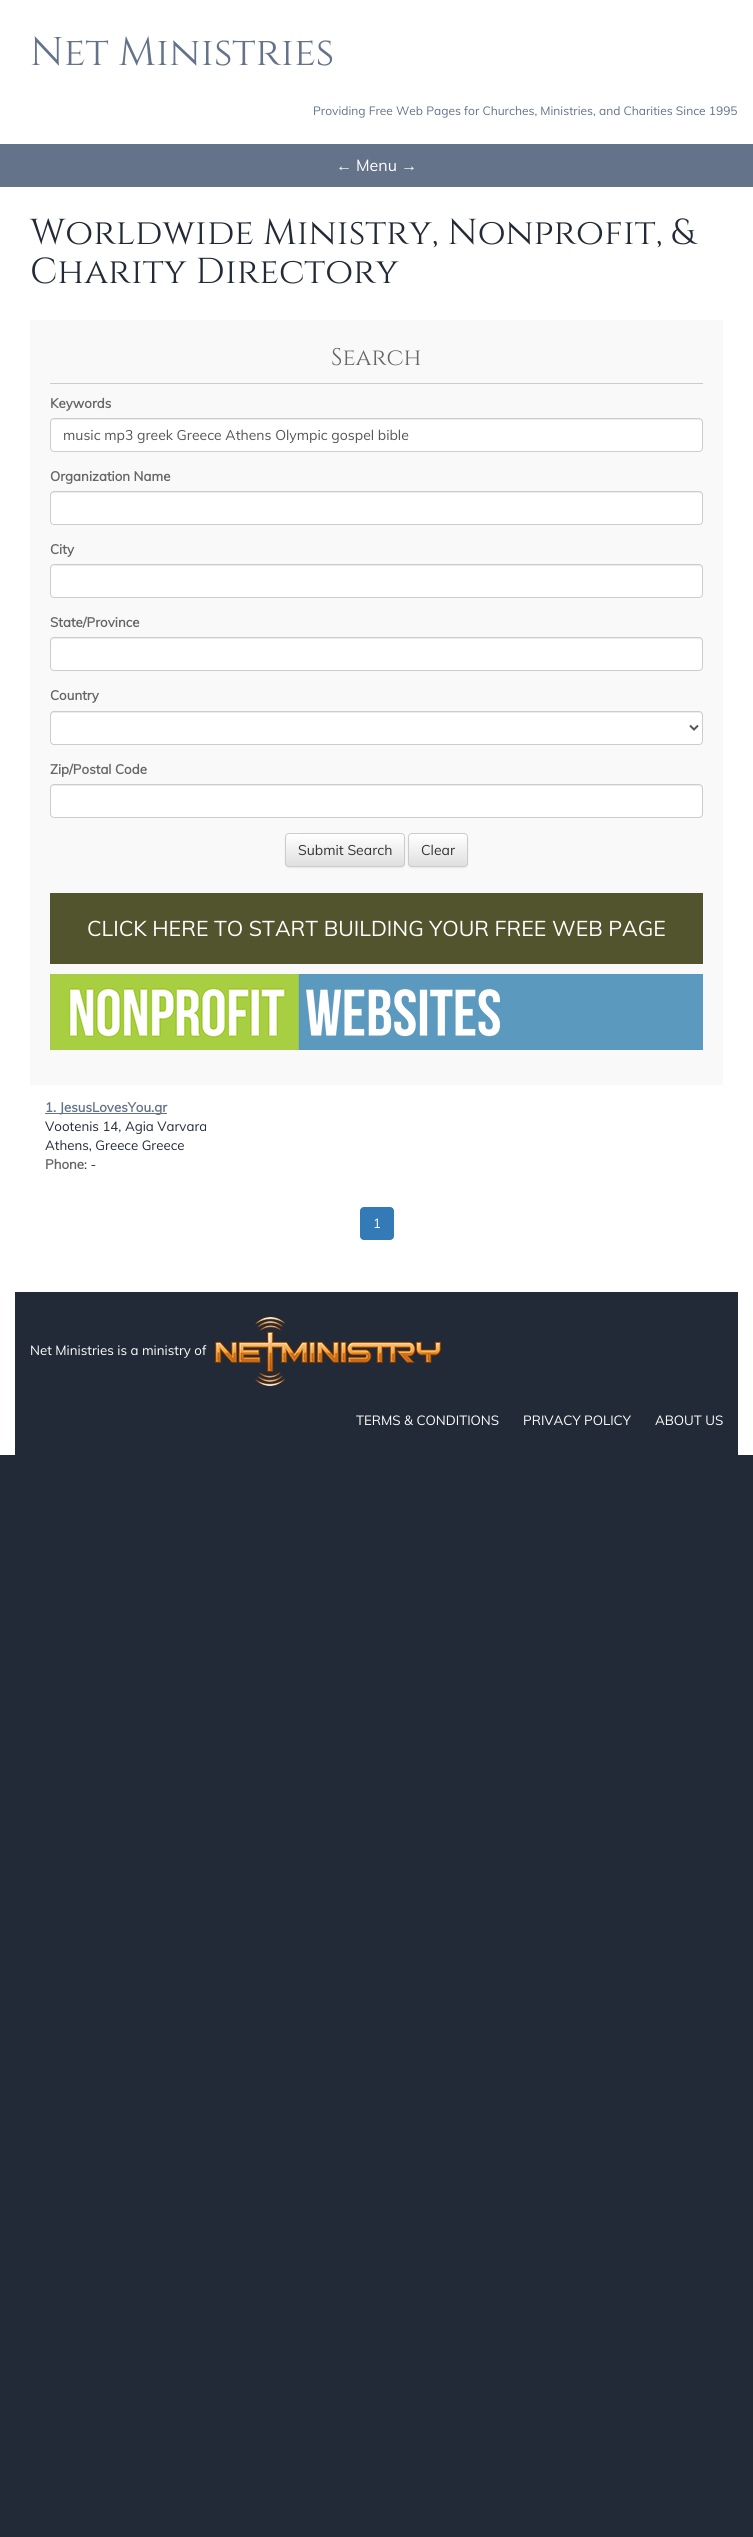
import math
import cairo

surface = cairo.ImageSurface(cairo.FORMAT_RGB24, 753, 2537)
ctx = cairo.Context(surface)
options = cairo.FontOptions()
options.set_hint_metrics(cairo.HINT_METRICS_OFF)
options.set_hint_style(cairo.HINT_STYLE_NONE)
ctx.set_font_options(options)
ctx.set_miter_limit(4)


def set_color(code):
    ctx.set_source_rgb(*(v / 255 for v in bytes.fromhex(code[-6:])))


def draw_text(x, y, s, family, size, color, bold=False, italic=False):
    ctx.select_font_face(family, cairo.FONT_SLANT_ITALIC if italic else cairo.FONT_SLANT_NORMAL, cairo.FONT_WEIGHT_BOLD if bold else cairo.FONT_WEIGHT_NORMAL)
    ctx.set_font_size(size)
    set_color(color)
    ctx.move_to(x, y)
    ctx.show_text(s)


def fill_rect(x, y, w, h, color):
    set_color(color)
    ctx.rectangle(x, y, w, h)
    ctx.fill()


def rounded_rect(x, y, w, h, r):
    ctx.new_sub_path()
    for i, (u, v) in enumerate([(x + w - r, y + h - r), (x + r, y + h - r), (x + r, y + r), (x + w - r, y + r)]):
        ctx.arc(u, v, r, i * math.pi / 2, (i + 1) * math.pi / 2)
    ctx.close_path()


def draw_shadow(x, y, w, h, r, blur, alpha):
    ctx.push_group_with_content(cairo.CONTENT_ALPHA)
    ctx.set_operator(cairo.OPERATOR_SOURCE)
    for i in range(15, -16, -2):
        e = blur * i / 6
        if min(w, h) + 2 * e > 0:
            ctx.set_source_rgba(0, 0, 0, alpha * math.erfc((i - 1) / 8.5) / 2)
            rounded_rect(x - e, y - e, w + 2 * e, h + 2 * e, max(0, min(r + e + blur * .6, min(w, h) / 2 + e)))
            ctx.fill()
    ctx.mask(ctx.pop_group())


def draw_image(path, x, y, w, h):
    ctx.save()
    ctx.set_source_surface(cairo.ImageSurface.create_from_png(path), x, y)
    ctx.rectangle(x, y, w, h)
    ctx.fill()
    ctx.restore()


set_color("#232a37")
ctx.paint()
fill_rect(0, 0, 753, 144, "#ffffff")
draw_text(30, 65, "Net Ministries", "Cinzel", 40, "#64728a")
draw_text(313, 115, "Providing Free Web Pages for Churches, Ministries, and Charities Since 1995", "Muli", 12, "#64728a")
fill_rect(0, 144, 753, 43, "#64728a")
draw_text(336, 171, "←", "Liberation Sans", 16, "#ffffff")
draw_text(356, 171, "Menu", "Muli", 16, "#ffffff")
draw_text(401, 171, "→", "Liberation Sans", 16, "#ffffff")
fill_rect(0, 187, 753, 1268, "#ffffff")
draw_text(30, 244, "Worldwide Ministry, Nonprofit, &", "Cinzel", 36, "#232a37")
draw_text(30, 283, "Charity Directory", "Cinzel", 36, "#232a37")
fill_rect(30, 320, 693, 765, "#f9f9f9")
fill_rect(50, 383, 653, 1, "#cccccc")
draw_text(331, 365, "Search", "Cinzel", 24, "#666666")
draw_text(50, 408, "Keywords", "Muli", 13.3, "#666666", bold=True)
set_color("#ffffff")
rounded_rect(50, 418, 653, 34, 4)
ctx.fill()
set_color("#ececec")
ctx.new_path()
ctx.move_to(54, 420)
ctx.line_to(699, 420)
ctx.curve_to(701, 420, 702, 421, 702, 423)
ctx.line_to(702, 422)
ctx.curve_to(702, 420, 701, 419, 699, 419)
ctx.line_to(54, 419)
ctx.curve_to(52, 419, 51, 420, 51, 422)
ctx.line_to(51, 423)
ctx.curve_to(51, 421, 52, 420, 54, 420)
ctx.close_path()
ctx.fill()
rounded_rect(50.5, 418.5, 652, 33, 3.5)
set_color("#cccccc")
ctx.set_line_width(1)
ctx.stroke()
draw_text(63, 440, "music mp3 greek Greece Athens Olympic gospel bible", "Muli", 14, "#555555")
draw_text(50, 481, "Organization Name", "Muli", 13.3, "#666666", bold=True)
set_color("#ffffff")
rounded_rect(50, 491, 653, 34, 4)
ctx.fill()
set_color("#ececec")
ctx.new_path()
ctx.move_to(54, 493)
ctx.line_to(699, 493)
ctx.curve_to(701, 493, 702, 494, 702, 496)
ctx.line_to(702, 495)
ctx.curve_to(702, 493, 701, 492, 699, 492)
ctx.line_to(54, 492)
ctx.curve_to(52, 492, 51, 493, 51, 495)
ctx.line_to(51, 496)
ctx.curve_to(51, 494, 52, 493, 54, 493)
ctx.close_path()
ctx.fill()
rounded_rect(50.5, 491.5, 652, 33, 3.5)
set_color("#cccccc")
ctx.stroke()
draw_text(50, 554, "City", "Muli", 13.3, "#666666", bold=True)
set_color("#ffffff")
rounded_rect(50, 564, 653, 34, 4)
ctx.fill()
set_color("#ececec")
ctx.new_path()
ctx.move_to(54, 566)
ctx.line_to(699, 566)
ctx.curve_to(701, 566, 702, 567, 702, 569)
ctx.line_to(702, 568)
ctx.curve_to(702, 566, 701, 565, 699, 565)
ctx.line_to(54, 565)
ctx.curve_to(52, 565, 51, 566, 51, 568)
ctx.line_to(51, 569)
ctx.curve_to(51, 567, 52, 566, 54, 566)
ctx.close_path()
ctx.fill()
rounded_rect(50.5, 564.5, 652, 33, 3.5)
set_color("#cccccc")
ctx.stroke()
draw_text(50, 627, "State/Province", "Muli", 13.3, "#666666", bold=True)
set_color("#ffffff")
rounded_rect(50, 637, 653, 34, 4)
ctx.fill()
set_color("#ececec")
ctx.new_path()
ctx.move_to(54, 639)
ctx.line_to(699, 639)
ctx.curve_to(701, 639, 702, 640, 702, 642)
ctx.line_to(702, 641)
ctx.curve_to(702, 639, 701, 638, 699, 638)
ctx.line_to(54, 638)
ctx.curve_to(52, 638, 51, 639, 51, 641)
ctx.line_to(51, 642)
ctx.curve_to(51, 640, 52, 639, 54, 639)
ctx.close_path()
ctx.fill()
rounded_rect(50.5, 637.5, 652, 33, 3.5)
set_color("#cccccc")
ctx.stroke()
draw_text(50, 700, "Country", "Muli", 13.3, "#666666", bold=True)
set_color("#ffffff")
rounded_rect(50, 711, 653, 34, 4)
ctx.fill()
set_color("#ececec")
ctx.new_path()
ctx.move_to(54, 713)
ctx.line_to(699, 713)
ctx.curve_to(701, 713, 702, 714, 702, 716)
ctx.line_to(702, 715)
ctx.curve_to(702, 713, 701, 712, 699, 712)
ctx.line_to(54, 712)
ctx.curve_to(52, 712, 51, 713, 51, 715)
ctx.line_to(51, 716)
ctx.curve_to(51, 714, 52, 713, 54, 713)
ctx.close_path()
ctx.fill()
rounded_rect(50.5, 711.5, 652, 33, 3.5)
set_color("#cccccc")
ctx.stroke()
ctx.new_path()
ctx.move_to(690, 725.5)
ctx.line_to(694, 729.5)
ctx.line_to(698, 725.5)
set_color("#555555")
ctx.set_line_width(2)
ctx.stroke()
draw_text(50, 774, "Zip/Postal Code", "Muli", 13.3, "#666666", bold=True)
set_color("#ffffff")
rounded_rect(50, 784, 653, 34, 4)
ctx.fill()
set_color("#ececec")
ctx.new_path()
ctx.move_to(54, 786)
ctx.line_to(699, 786)
ctx.curve_to(701, 786, 702, 787, 702, 789)
ctx.line_to(702, 788)
ctx.curve_to(702, 786, 701, 785, 699, 785)
ctx.line_to(54, 785)
ctx.curve_to(52, 785, 51, 786, 51, 788)
ctx.line_to(51, 789)
ctx.curve_to(51, 787, 52, 786, 54, 786)
ctx.close_path()
ctx.fill()
rounded_rect(50.5, 784.5, 652, 33, 3.5)
set_color("#cccccc")
ctx.set_line_width(1)
ctx.stroke()
set_color("#000000")
draw_shadow(285, 834, 120, 34, 4, 0.5, 0.07)
ctx.save()
rounded_rect(285, 833, 120, 34, 4)
ctx.clip()
gradient = cairo.LinearGradient(345, 834, 345, 866)
gradient.add_color_stop_rgba(0, 1, 1, 1, 1)
gradient.add_color_stop_rgba(1, 0.878, 0.878, 0.878, 1)
ctx.set_source(gradient)
ctx.rectangle(285, 834, 120, 32)
ctx.fill()
ctx.restore()
set_color("#ffffff")
ctx.new_path()
ctx.move_to(289, 835)
ctx.line_to(401, 835)
ctx.curve_to(403, 835, 404, 836, 404, 838)
ctx.curve_to(404, 836, 403, 834, 401, 834)
ctx.line_to(308, 834)
ctx.curve_to(306, 834, 286, 829, 286, 838)
ctx.curve_to(286, 836, 287, 835, 289, 835)
ctx.close_path()
ctx.fill()
rounded_rect(285.5, 833.5, 119, 33, 3.5)
set_color("#cccccc")
ctx.stroke()
draw_text(298, 855, "Submit Search", "Muli", 14, "#333333")
set_color("#000000")
draw_shadow(408, 834, 60, 34, 4, 0.5, 0.07)
ctx.save()
rounded_rect(408, 833, 60, 34, 4)
ctx.clip()
gradient = cairo.LinearGradient(438, 834, 438, 866)
gradient.add_color_stop_rgba(0, 1, 1, 1, 1)
gradient.add_color_stop_rgba(1, 0.878, 0.878, 0.878, 1)
ctx.set_source(gradient)
ctx.rectangle(408, 834, 60, 32)
ctx.fill()
ctx.restore()
rounded_rect(408.5, 833.5, 59, 33, 3.5)
set_color("#cccccc")
ctx.stroke()
draw_text(421, 855, "Clear", "Muli", 14, "#333333")
fill_rect(50, 893, 653, 71, "#52542e")
draw_text(87, 936, "CLICK HERE TO START BUILDING YOUR FREE WEB PAGE", "Muli", 21.3, "#ffffff")
fill_rect(50, 974, 653, 76, "#5c99bf")
draw_image("assets/img1.png", 50, 974, 450, 76)
fill_rect(45, 1113, 122, 1, "#64728a")
draw_text(45, 1112, "1. JesusLovesYou.gr", "Muli", 13.3, "#64728a", bold=True)
draw_text(45, 1131, "Vootenis 14, Agia Varvara", "Muli", 13.3, "#232a37")
draw_text(45, 1150, "Athens, Greece Greece", "Muli", 13.3, "#232a37")
draw_text(45, 1169, "Phone", "Muli", 13.3, "#666666", bold=True)
draw_text(84, 1169, ": -", "Muli", 13.3, "#232a37")
set_color("#337ab7")
rounded_rect(360.5, 1207.5, 33, 32, 3.5)
ctx.fill_preserve()
ctx.stroke()
draw_text(373, 1228, "1", "Muli", 13.3, "#ffffff")
fill_rect(15, 1292, 723, 163, "#232a37")
draw_text(30, 1355, "Net Ministries is a ministry of", "Muli", 13.3, "#ffffff")
draw_image("assets/img2.png", 215, 1317, 226, 69)
draw_text(356, 1425, "TERMS & CONDITIONS", "Muli", 13.3, "#ffffff")
draw_text(523, 1425, "PRIVACY POLICY", "Muli", 13.3, "#ffffff")
draw_text(655, 1425, "ABOUT US", "Muli", 13.3, "#ffffff")
surface.write_to_png("output.png")
